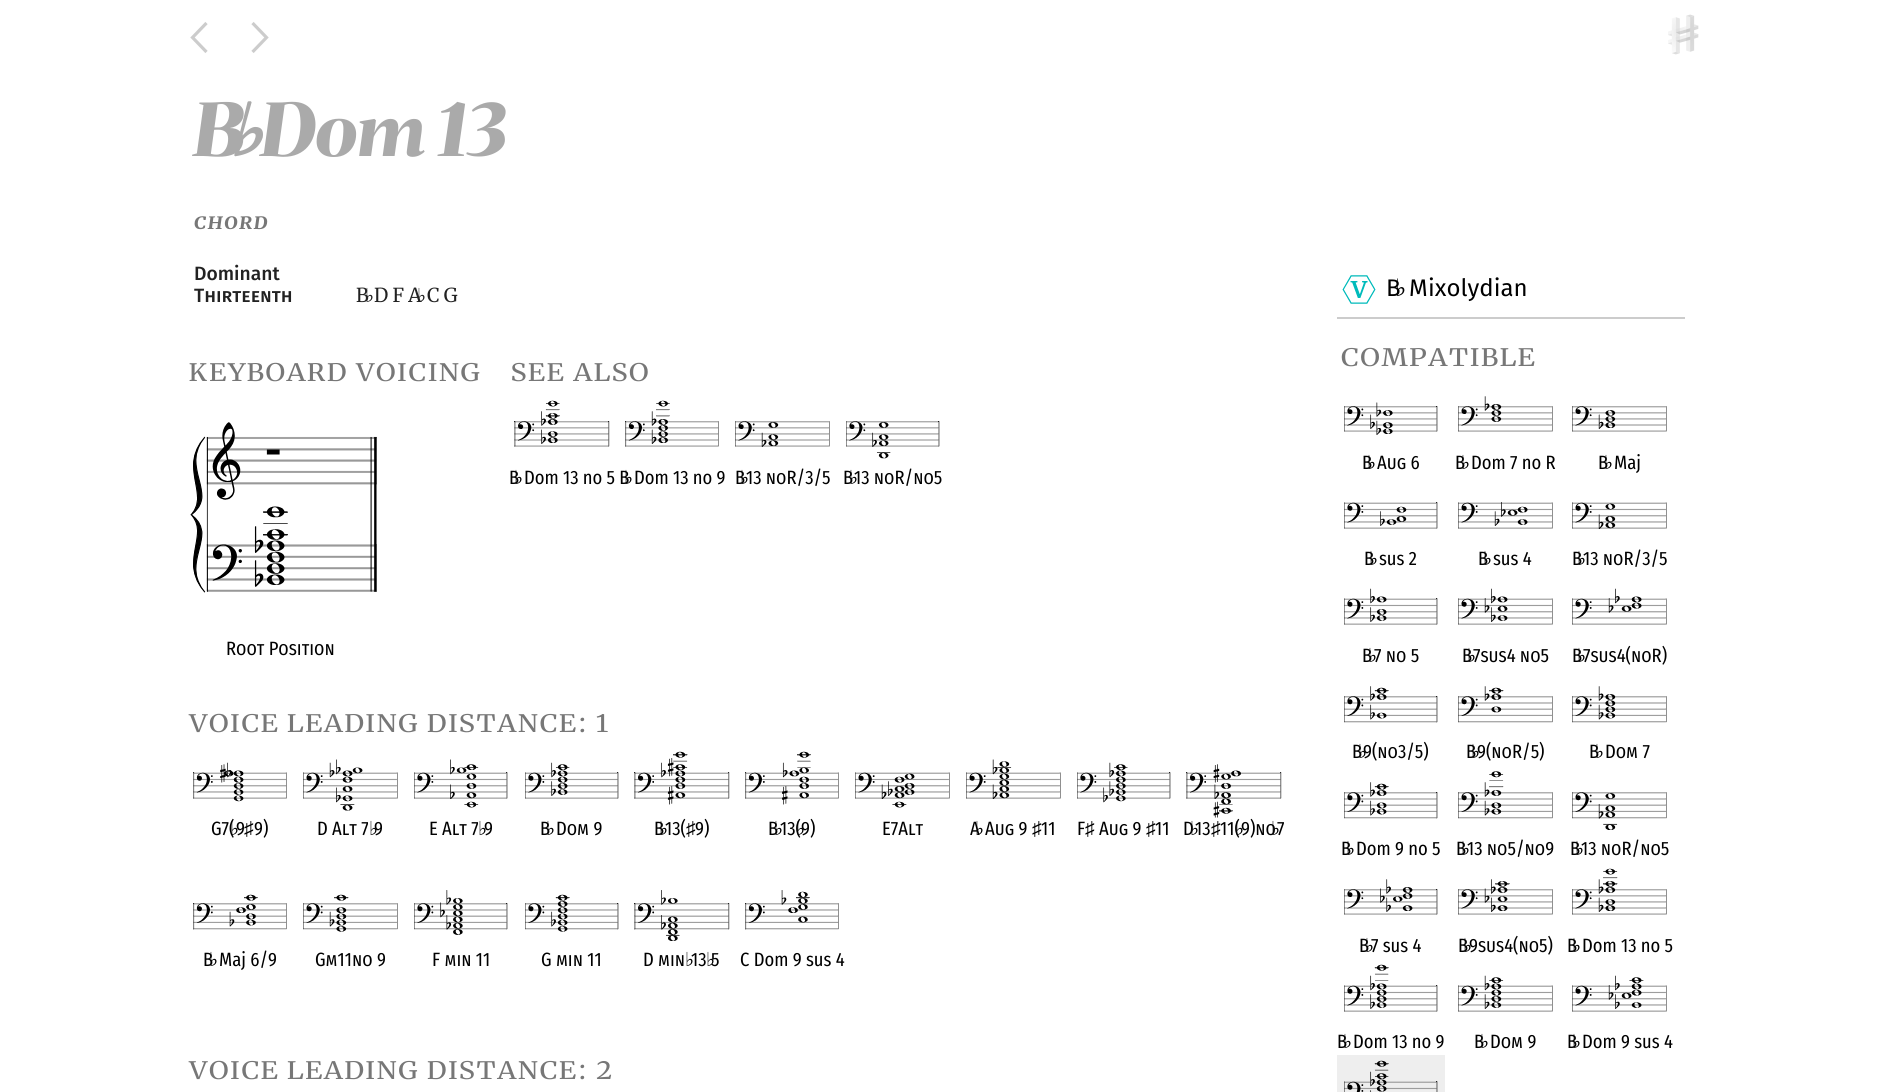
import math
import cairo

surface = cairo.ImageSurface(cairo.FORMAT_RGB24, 1881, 1092)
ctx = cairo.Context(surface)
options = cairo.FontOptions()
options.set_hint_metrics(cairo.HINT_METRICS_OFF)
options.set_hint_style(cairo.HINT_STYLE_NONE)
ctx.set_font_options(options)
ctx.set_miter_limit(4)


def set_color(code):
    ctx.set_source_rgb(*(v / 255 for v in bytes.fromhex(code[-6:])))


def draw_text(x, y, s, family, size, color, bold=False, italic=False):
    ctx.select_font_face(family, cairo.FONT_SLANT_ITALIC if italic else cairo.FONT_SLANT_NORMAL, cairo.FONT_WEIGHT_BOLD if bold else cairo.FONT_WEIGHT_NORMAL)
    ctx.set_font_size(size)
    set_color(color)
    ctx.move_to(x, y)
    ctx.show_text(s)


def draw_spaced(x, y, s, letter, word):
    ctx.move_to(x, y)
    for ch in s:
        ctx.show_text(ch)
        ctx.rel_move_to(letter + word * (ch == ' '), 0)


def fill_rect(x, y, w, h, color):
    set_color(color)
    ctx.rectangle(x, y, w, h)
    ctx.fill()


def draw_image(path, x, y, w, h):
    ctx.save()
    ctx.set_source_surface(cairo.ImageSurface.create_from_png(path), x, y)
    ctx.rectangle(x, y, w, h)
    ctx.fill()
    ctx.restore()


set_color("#ffffff")
ctx.paint()
ctx.new_path()
ctx.move_to(206.5, 52)
ctx.line_to(192.5, 37.5)
ctx.line_to(206.5, 23)
set_color("#cccccc")
ctx.set_line_width(3.2)
ctx.stroke()
ctx.new_path()
ctx.move_to(252.5, 52)
ctx.line_to(266.5, 37.5)
ctx.line_to(252.5, 23)
ctx.stroke()
draw_image("assets/img1.png", 1668, 14, 31, 41)
ctx.select_font_face("Merriweather Black", cairo.FONT_SLANT_ITALIC)
ctx.set_font_size(72)
set_color("#aaaaaa")
draw_spaced(194, 156, "B", 0.5, 0)
ctx.select_font_face("DejaVu Sans", cairo.FONT_SLANT_ITALIC, cairo.FONT_WEIGHT_BOLD)
draw_spaced(228, 156, "♭", 0.5, 0)
ctx.select_font_face("Merriweather Black", cairo.FONT_SLANT_ITALIC)
draw_spaced(261, 156, "Dom 13", 0.5, 0)
ctx.select_font_face("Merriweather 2 Black", cairo.FONT_SLANT_ITALIC)
ctx.set_font_size(17)
set_color("#777777")
draw_spaced(194, 229, "CHORD", 1.75, 0)
draw_text(194, 280, "Dominant", "Fira Sans Medium", 19.25, "#222222")
draw_text(194, 302, "Thirteenth", "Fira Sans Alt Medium", 19.25, "#222222")
draw_text(356, 302, "B", "Merriweather", 19.25, "#222222")
draw_text(365, 302, "♭", "DejaVu Sans", 19.25, "#222222")
draw_text(374, 302, "D F A", "Merriweather", 19.25, "#222222")
draw_text(417, 302, "♭", "DejaVu Sans", 19.25, "#222222")
draw_text(427, 302, "C G", "Merriweather", 19.25, "#222222")
fill_rect(1337, 317, 348, 2, "#cccccc")
draw_image("assets/img2.png", 1342, 275, 34, 29)
draw_text(1386, 296, "B", "Fira Sans", 24, "#000000")
draw_text(1395, 296, "♭", "DejaVu Sans", 24, "#000000")
draw_text(1409, 296, "Mixolydian", "Fira Sans", 24, "#000000")
ctx.select_font_face("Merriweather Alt")
ctx.set_font_size(27.6)
set_color("#777777")
draw_spaced(1341, 366, "compatible", 1.9, 0)
draw_image("assets/img3.png", 1344, 402, 94, 33)
draw_text(1362, 469, "B", "Fira Sans Condensed", 19.25, "#000000")
draw_text(1367, 469, "♭", "DejaVu Sans", 19.25, "#000000")
draw_text(1377, 469, "Aug 6", "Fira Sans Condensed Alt", 19.25, "#000000")
draw_image("assets/img4.png", 1458, 396, 95, 36)
draw_text(1455, 469, "B", "Fira Sans Condensed", 19.25, "#000000")
draw_text(1461, 469, "♭", "DejaVu Sans", 19.25, "#000000")
draw_text(1471, 469, "Dom 7 no R", "Fira Sans Condensed", 19.25, "#000000")
draw_image("assets/img5.png", 1572, 406, 95, 26)
draw_text(1598, 469, "B", "Fira Sans Condensed", 19.25, "#000000")
draw_text(1604, 469, "♭", "DejaVu Sans", 19.25, "#000000")
draw_text(1614, 469, "Maj", "Fira Sans Condensed", 19.25, "#000000")
draw_image("assets/img6.png", 1344, 502, 94, 27)
draw_text(1364, 565, "B", "Fira Sans Condensed", 19.25, "#000000")
draw_text(1369, 565, "♭", "DejaVu Sans", 19.25, "#000000")
draw_text(1379, 565, "sus 2", "Fira Sans Condensed", 19.25, "#000000")
draw_image("assets/img7.png", 1458, 502, 95, 27)
draw_text(1478, 565, "B", "Fira Sans Condensed", 19.25, "#000000")
draw_text(1483, 565, "♭", "DejaVu Sans", 19.25, "#000000")
draw_text(1493, 565, "sus 4", "Fira Sans Condensed", 19.25, "#000000")
draw_image("assets/img8.png", 1572, 502, 95, 27)
draw_text(1572, 565, "B", "Fira Sans Condensed", 19.25, "#000000")
draw_text(1577, 565, "♭", "DejaVu Sans", 19.25, "#000000")
draw_text(1583, 565, "13 noR/3/5", "Fira Sans Condensed Alt", 19.25, "#000000")
draw_image("assets/img9.png", 1344, 588, 94, 37)
draw_text(1362, 662, "B", "Fira Sans Condensed", 19.25, "#000000")
draw_text(1368, 662, "♭", "DejaVu Sans", 19.25, "#000000")
draw_text(1374, 662, "7 no 5", "Fira Sans Condensed Alt", 19.25, "#000000")
draw_image("assets/img10.png", 1458, 588, 95, 37)
draw_text(1462, 662, "B", "Fira Sans Condensed", 19.25, "#000000")
draw_text(1467, 662, "♭", "DejaVu Sans", 19.25, "#000000")
draw_text(1473, 662, "7sus4 no5", "Fira Sans Condensed Alt", 19.25, "#000000")
draw_image("assets/img11.png", 1572, 588, 95, 37)
draw_text(1572, 662, "B", "Fira Sans Condensed", 19.25, "#000000")
draw_text(1577, 662, "♭", "DejaVu Sans", 19.25, "#000000")
draw_text(1583, 662, "7sus4(noR)", "Fira Sans Condensed Alt", 19.25, "#000000")
draw_image("assets/img12.png", 1344, 686, 94, 37)
draw_text(1352, 758, "B", "Fira Sans Condensed", 19.25, "#000000")
draw_text(1358, 758, "♭", "DejaVu Sans", 19.25, "#000000")
draw_text(1363, 758, "9(no3/5)", "Fira Sans Condensed Alt", 19.25, "#000000")
draw_image("assets/img13.png", 1458, 686, 95, 37)
draw_text(1466, 758, "B", "Fira Sans Condensed", 19.25, "#000000")
draw_text(1471, 758, "♭", "DejaVu Sans", 19.25, "#000000")
draw_text(1477, 758, "9(noR/5)", "Fira Sans Condensed Alt", 19.25, "#000000")
draw_image("assets/img14.png", 1572, 686, 95, 37)
draw_text(1589, 758, "B", "Fira Sans Condensed", 19.25, "#000000")
draw_text(1595, 758, "♭", "DejaVu Sans", 19.25, "#000000")
draw_text(1605, 758, "Dom 7", "Fira Sans Condensed Alt", 19.25, "#000000")
draw_image("assets/img15.png", 1344, 782, 94, 37)
draw_text(1341, 855, "B", "Fira Sans Condensed", 19.25, "#000000")
draw_text(1346, 855, "♭", "DejaVu Sans", 19.25, "#000000")
draw_text(1356, 855, "Dom 9 no 5", "Fira Sans Condensed", 19.25, "#000000")
draw_image("assets/img16.png", 1458, 771, 95, 48)
draw_text(1456, 855, "B", "Fira Sans Condensed", 19.25, "#000000")
draw_text(1461, 855, "♭", "DejaVu Sans", 19.25, "#000000")
draw_text(1467, 855, "13 no5/no9", "Fira Sans Condensed Alt", 19.25, "#000000")
draw_image("assets/img17.png", 1572, 792, 95, 38)
draw_text(1570, 855, "B", "Fira Sans Condensed", 19.25, "#000000")
draw_text(1575, 855, "♭", "DejaVu Sans", 19.25, "#000000")
draw_text(1581, 855, "13 noR/no5", "Fira Sans Condensed Alt", 19.25, "#000000")
draw_image("assets/img18.png", 1344, 879, 94, 36)
draw_text(1359, 952, "B", "Fira Sans Condensed", 19.25, "#000000")
draw_text(1365, 952, "♭", "DejaVu Sans", 19.25, "#000000")
draw_text(1371, 952, "7 sus 4", "Fira Sans Condensed", 19.25, "#000000")
draw_image("assets/img19.png", 1458, 879, 95, 36)
draw_text(1458, 952, "B", "Fira Sans Condensed", 19.25, "#000000")
draw_text(1463, 952, "♭", "DejaVu Sans", 19.25, "#000000")
draw_text(1469, 952, "9sus4(no5)", "Fira Sans Condensed Alt", 19.25, "#000000")
draw_image("assets/img20.png", 1572, 868, 95, 47)
draw_text(1567, 952, "B", "Fira Sans Condensed", 19.25, "#000000")
draw_text(1572, 952, "♭", "DejaVu Sans", 19.25, "#000000")
draw_text(1582, 952, "Dom 13 no 5", "Fira Sans Condensed", 19.25, "#000000")
draw_image("assets/img21.png", 1344, 964, 94, 48)
draw_text(1337, 1048, "B", "Fira Sans Condensed", 19.25, "#000000")
draw_text(1343, 1048, "♭", "DejaVu Sans", 19.25, "#000000")
draw_text(1353, 1048, "Dom 13 no 9", "Fira Sans Condensed", 19.25, "#000000")
draw_image("assets/img22.png", 1458, 975, 95, 37)
draw_text(1474, 1048, "B", "Fira Sans Condensed", 19.25, "#000000")
draw_text(1480, 1048, "♭", "DejaVu Sans", 19.25, "#000000")
draw_text(1490, 1048, "Dom 9", "Fira Sans Condensed Alt", 19.25, "#000000")
draw_image("assets/img23.png", 1572, 975, 95, 37)
draw_text(1567, 1048, "B", "Fira Sans Condensed", 19.25, "#000000")
draw_text(1572, 1048, "♭", "DejaVu Sans", 19.25, "#000000")
draw_text(1582, 1048, "Dom 9 sus 4", "Fira Sans Condensed", 19.25, "#000000")
fill_rect(1337, 1055, 108, 37, "#eeeeee")
draw_image("assets/img24.png", 1344, 1060, 94, 32)
ctx.select_font_face("Merriweather Alt")
ctx.set_font_size(27.6)
set_color("#777777")
draw_spaced(189, 381, "keyboard voicing", 1.9, 0)
draw_image("assets/img25.png", 190, 422, 187, 171)
draw_text(226, 655, "Root Position", "Fira Sans Condensed Alt", 19.25, "#000000")
ctx.select_font_face("Merriweather Alt")
ctx.set_font_size(27.6)
set_color("#777777")
draw_spaced(511, 381, "see also", 1.9, 0)
draw_image("assets/img26.png", 514, 400, 96, 47)
draw_text(509, 484, "B", "Fira Sans Condensed", 19.25, "#000000")
draw_text(514, 484, "♭", "DejaVu Sans", 19.25, "#000000")
draw_text(524, 484, "Dom 13 no 5 B", "Fira Sans Condensed", 19.25, "#000000")
draw_image("assets/img27.png", 625, 400, 94, 47)
draw_text(624, 484, "♭", "DejaVu Sans", 19.25, "#000000")
draw_text(634, 484, "Dom 13 no 9", "Fira Sans Condensed", 19.25, "#000000")
draw_image("assets/img28.png", 735, 421, 95, 26)
draw_text(735, 484, "B", "Fira Sans Condensed", 19.25, "#000000")
draw_text(740, 484, "♭", "DejaVu Sans", 19.25, "#000000")
draw_text(746, 484, "13 noR/3/5", "Fira Sans Condensed Alt", 19.25, "#000000")
draw_image("assets/img29.png", 846, 421, 94, 38)
draw_text(843, 484, "B", "Fira Sans Condensed", 19.25, "#000000")
draw_text(849, 484, "♭", "DejaVu Sans", 19.25, "#000000")
draw_text(854, 484, "13 noR/no5", "Fira Sans Condensed Alt", 19.25, "#000000")
ctx.select_font_face("Merriweather Alt")
ctx.set_font_size(27.6)
set_color("#777777")
draw_spaced(189, 732, "voice leading distance: 1", 1.9, 0)
draw_image("assets/img30.png", 193, 762, 94, 40)
draw_text(211, 835, "G7(", "Fira Sans Condensed", 19.25, "#000000")
draw_text(230, 835, "♭", "DejaVu Sans", 19.25, "#000000")
draw_text(236, 835, "9", "Fira Sans Condensed", 19.25, "#000000")
draw_text(244, 835, "♯", "Liberation Sans", 19.25, "#000000")
draw_text(254, 835, "9)", "Fira Sans Condensed", 19.25, "#000000")
draw_image("assets/img31.png", 303, 759, 95, 52)
draw_text(317, 835, "D Alt 7", "Fira Sans Condensed Alt", 19.25, "#000000")
draw_text(369, 835, "♭", "DejaVu Sans", 19.25, "#000000")
draw_text(374, 835, "9", "Fira Sans Condensed", 19.25, "#000000")
draw_image("assets/img32.png", 414, 759, 94, 49)
draw_text(429, 835, "E Alt 7", "Fira Sans Condensed Alt", 19.25, "#000000")
draw_text(478, 835, "♭", "DejaVu Sans", 19.25, "#000000")
draw_text(484, 835, "9", "Fira Sans Condensed", 19.25, "#000000")
draw_image("assets/img33.png", 525, 762, 94, 37)
draw_text(540, 835, "B", "Fira Sans Condensed", 19.25, "#000000")
draw_text(546, 835, "♭", "DejaVu Sans", 19.25, "#000000")
draw_text(556, 835, "Dom 9", "Fira Sans Condensed Alt", 19.25, "#000000")
draw_image("assets/img34.png", 634, 751, 96, 54)
draw_text(654, 835, "B", "Fira Sans Condensed", 19.25, "#000000")
draw_text(659, 835, "♭", "DejaVu Sans", 19.25, "#000000")
draw_text(665, 835, "13(", "Fira Sans Condensed", 19.25, "#000000")
draw_text(695, 835, "9)", "Fira Sans Condensed", 19.25, "#000000")
draw_text(686, 835, "♯", "Liberation Sans", 19.25, "#000000")
draw_image("assets/img35.png", 745, 751, 94, 54)
draw_text(768, 835, "B", "Fira Sans Condensed", 19.25, "#000000")
draw_text(774, 835, "♭", "DejaVu Sans", 19.25, "#000000")
draw_text(780, 835, "13(", "Fira Sans Condensed", 19.25, "#000000")
draw_text(796, 835, "♭", "DejaVu Sans", 19.25, "#000000")
draw_text(801, 835, "9)", "Fira Sans Condensed", 19.25, "#000000")
draw_image("assets/img36.png", 855, 772, 95, 36)
draw_text(882, 835, "E7Alt", "Fira Sans Condensed Alt", 19.25, "#000000")
draw_image("assets/img37.png", 966, 759, 95, 40)
draw_text(970, 835, "A", "Fira Sans Condensed", 19.25, "#000000")
draw_text(975, 835, "♭", "DejaVu Sans", 19.25, "#000000")
draw_text(985, 835, "Aug 9", "Fira Sans Condensed Alt", 19.25, "#000000")
draw_text(1032, 835, "♯", "Liberation Sans", 19.25, "#000000")
draw_text(1041, 835, "11", "Fira Sans Condensed", 19.25, "#000000")
draw_image("assets/img38.png", 1077, 762, 94, 41)
draw_text(1077, 835, "F", "Fira Sans Condensed", 19.25, "#000000")
draw_text(1085, 835, "♯", "Liberation Sans", 19.25, "#000000")
draw_text(1099, 835, "Aug 9", "Fira Sans Condensed Alt", 19.25, "#000000")
draw_text(1146, 835, "♯", "Liberation Sans", 19.25, "#000000")
draw_text(1155, 835, "11", "Fira Sans Condensed", 19.25, "#000000")
draw_image("assets/img39.png", 1186, 764, 96, 54)
draw_text(1183, 835, "D", "Fira Sans Condensed", 19.25, "#000000")
draw_text(1190, 835, "♭", "DejaVu Sans", 19.25, "#000000")
draw_text(1220, 835, "11(", "Fira Sans Condensed", 19.25, "#000000")
draw_text(1235, 835, "♭", "DejaVu Sans", 19.25, "#000000")
draw_text(1241, 835, "9)no", "Fira Sans Condensed Alt", 19.25, "#000000")
draw_text(1195, 835, "13", "Fira Sans Condensed", 19.25, "#000000")
draw_text(1211, 835, "♯", "Liberation Sans", 19.25, "#000000")
draw_text(1271, 835, "♭", "DejaVu Sans", 19.25, "#000000")
draw_text(1277, 835, "7", "Fira Sans Condensed", 19.25, "#000000")
draw_image("assets/img40.png", 193, 894, 94, 36)
draw_text(203, 966, "B", "Fira Sans Condensed", 19.25, "#000000")
draw_text(209, 966, "♭", "DejaVu Sans", 19.25, "#000000")
draw_text(219, 966, "Maj 6/9", "Fira Sans Condensed", 19.25, "#000000")
draw_image("assets/img41.png", 303, 894, 95, 38)
draw_text(315, 966, "Gm11no 9", "Fira Sans Condensed Alt", 19.25, "#000000")
draw_image("assets/img42.png", 414, 890, 94, 45)
draw_text(432, 966, "F min 11", "Fira Sans Condensed Alt", 19.25, "#000000")
draw_image("assets/img43.png", 525, 894, 94, 38)
draw_text(541, 966, "G min 11", "Fira Sans Condensed Alt", 19.25, "#000000")
draw_image("assets/img44.png", 634, 890, 96, 51)
draw_text(643, 966, "D min", "Fira Sans Condensed Alt", 19.25, "#000000")
draw_text(685, 966, "♭", "DejaVu Sans", 19.25, "#000000")
draw_text(691, 966, "13", "Fira Sans Condensed", 19.25, "#000000")
draw_text(706, 966, "♭", "DejaVu Sans", 19.25, "#000000")
draw_text(711, 966, "5", "Fira Sans Condensed", 19.25, "#000000")
draw_image("assets/img45.png", 745, 890, 94, 40)
draw_text(740, 966, "C Dom 9 sus 4", "Fira Sans Condensed", 19.25, "#000000")
ctx.select_font_face("Merriweather Alt")
ctx.set_font_size(27.6)
set_color("#777777")
draw_spaced(189, 1079, "voice leading distance: 2", 1.9, 0)
surface.write_to_png("output.png")
